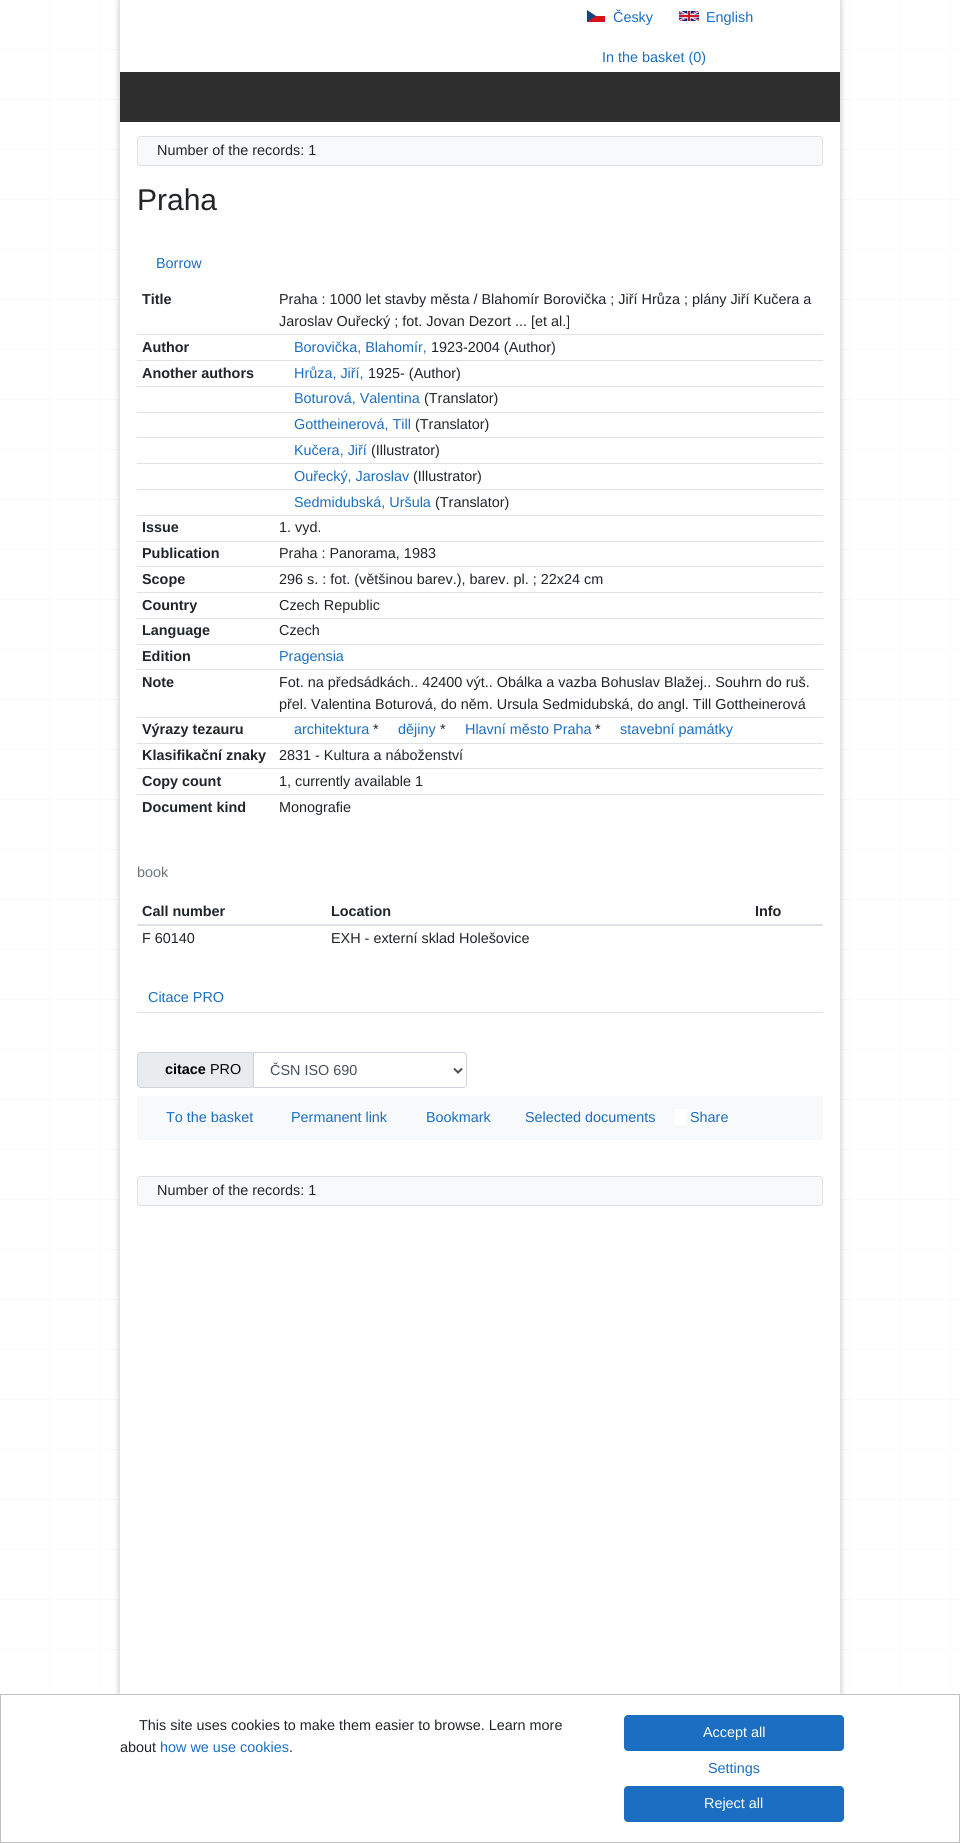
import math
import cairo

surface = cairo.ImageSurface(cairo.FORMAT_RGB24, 960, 1843)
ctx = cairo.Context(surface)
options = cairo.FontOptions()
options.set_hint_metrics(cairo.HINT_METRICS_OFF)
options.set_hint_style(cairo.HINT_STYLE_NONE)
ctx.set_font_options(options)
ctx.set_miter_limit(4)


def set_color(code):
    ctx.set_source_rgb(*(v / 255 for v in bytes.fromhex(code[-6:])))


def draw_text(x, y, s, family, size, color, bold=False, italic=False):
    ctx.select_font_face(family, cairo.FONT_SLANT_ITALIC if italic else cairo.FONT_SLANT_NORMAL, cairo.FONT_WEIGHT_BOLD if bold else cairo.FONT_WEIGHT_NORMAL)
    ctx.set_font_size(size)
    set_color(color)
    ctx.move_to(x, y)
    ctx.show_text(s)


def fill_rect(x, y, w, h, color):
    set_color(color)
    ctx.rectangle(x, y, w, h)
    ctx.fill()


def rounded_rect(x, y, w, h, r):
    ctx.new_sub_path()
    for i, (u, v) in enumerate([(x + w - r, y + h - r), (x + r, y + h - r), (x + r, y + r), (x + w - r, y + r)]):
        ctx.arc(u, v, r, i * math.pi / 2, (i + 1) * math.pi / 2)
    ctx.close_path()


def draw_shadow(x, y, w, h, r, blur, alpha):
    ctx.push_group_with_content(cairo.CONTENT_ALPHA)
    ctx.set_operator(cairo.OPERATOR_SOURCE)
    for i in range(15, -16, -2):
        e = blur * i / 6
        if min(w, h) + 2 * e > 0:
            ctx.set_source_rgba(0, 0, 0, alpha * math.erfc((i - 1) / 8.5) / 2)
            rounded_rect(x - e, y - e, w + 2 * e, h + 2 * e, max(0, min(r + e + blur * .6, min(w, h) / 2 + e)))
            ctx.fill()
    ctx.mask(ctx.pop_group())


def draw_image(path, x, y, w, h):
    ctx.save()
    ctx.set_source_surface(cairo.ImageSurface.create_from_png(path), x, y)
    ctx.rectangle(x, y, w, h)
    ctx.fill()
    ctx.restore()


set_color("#ffffff")
ctx.paint()
fill_rect(49, 0, 1, 1694, "#f8f9fa")
fill_rect(99, 0, 1, 1694, "#f8f9fa")
fill_rect(849, 0, 1, 1694, "#f8f9fa")
fill_rect(899, 0, 1, 1694, "#f8f9fa")
fill_rect(949, 0, 1, 1694, "#f8f9fa")
draw_image("assets/img1.png", 0, 49, 960, 1601)
set_color("#000000")
draw_shadow(119, -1, 722, 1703, 0, 3, 0.2)
fill_rect(120, 0, 720, 1694, "#ffffff")
draw_image("assets/img2.png", 587, 10, 18, 12)
draw_text(613, 22, "Česky", "Liberation Sans", 14.4, "#1b6ec2")
draw_image("assets/img3.png", 679, 11, 20, 10)
draw_text(706, 22, "English", "Liberation Sans", 14.4, "#1b6ec2")
draw_text(602, 62, "In the basket (0)", "Liberation Sans", 14.4, "#1b6ec2")
fill_rect(120, 72, 720, 50, "#2e2e2e")
set_color("#f8f9fa")
rounded_rect(137.5, 136.5, 685, 29, 3.5)
ctx.fill_preserve()
set_color("#dfe0e1")
ctx.set_line_width(1)
ctx.stroke()
draw_text(157, 155, "Number of the records: 1", "Liberation Sans", 14.4, "#212529")
draw_text(137, 210, "Praha", "Liberation Sans", 30, "#212529")
draw_text(156, 268, "Borrow", "Liberation Sans", 14.4, "#1b6ec2")
draw_text(142, 304, "Title", "Liberation Sans", 14.4, "#212529", bold=True)
draw_text(279, 304, "Praha : 1000 let stavby města / Blahomír Borovička ; Jiří Hrůza ; plány Jiří Kučera a", "Liberation Sans", 14.4, "#212529")
draw_text(279, 326, "Jaroslav Ouřecký ; fot. Jovan Dezort ... [et al.]", "Liberation Sans", 14.4, "#212529")
draw_text(142, 352, "Author", "Liberation Sans", 14.4, "#212529", bold=True)
fill_rect(137, 334, 686, 1, "#dee2e6")
draw_text(294, 352, "Borovička, Blahomír,", "Liberation Sans", 14.4, "#1b6ec2")
draw_text(431, 352, "1923-2004 (Author)", "Liberation Sans", 14.4, "#212529")
draw_text(142, 378, "Another authors", "Liberation Sans", 14.4, "#212529", bold=True)
fill_rect(137, 360, 686, 1, "#dee2e6")
draw_text(294, 378, "Hrůza, Jiří,", "Liberation Sans", 14.4, "#1b6ec2")
draw_text(368, 378, "1925- (Author)", "Liberation Sans", 14.4, "#212529")
fill_rect(137, 386, 686, 1, "#dee2e6")
draw_text(294, 403, "Boturová, Valentina", "Liberation Sans", 14.4, "#1b6ec2")
draw_text(424, 403, "(Translator)", "Liberation Sans", 14.4, "#212529")
fill_rect(137, 412, 686, 1, "#dee2e6")
draw_text(294, 429, "Gottheinerová, Till", "Liberation Sans", 14.4, "#1b6ec2")
draw_text(415, 429, "(Translator)", "Liberation Sans", 14.4, "#212529")
fill_rect(137, 437, 686, 1, "#dee2e6")
draw_text(294, 455, "Kučera, Jiří", "Liberation Sans", 14.4, "#1b6ec2")
draw_text(371, 455, "(Illustrator)", "Liberation Sans", 14.4, "#212529")
fill_rect(137, 463, 686, 1, "#dee2e6")
draw_text(294, 481, "Ouřecký, Jaroslav", "Liberation Sans", 14.4, "#1b6ec2")
draw_text(413, 481, "(Illustrator)", "Liberation Sans", 14.4, "#212529")
fill_rect(137, 489, 686, 1, "#dee2e6")
draw_text(294, 507, "Sedmidubská, Uršula", "Liberation Sans", 14.4, "#1b6ec2")
draw_text(435, 507, "(Translator)", "Liberation Sans", 14.4, "#212529")
draw_text(142, 532, "Issue", "Liberation Sans", 14.4, "#212529", bold=True)
fill_rect(137, 515, 686, 1, "#dee2e6")
draw_text(279, 532, "1. vyd.", "Liberation Sans", 14.4, "#212529")
draw_text(142, 558, "Publication", "Liberation Sans", 14.4, "#212529", bold=True)
fill_rect(137, 541, 686, 1, "#dee2e6")
draw_text(279, 558, "Praha : Panorama, 1983", "Liberation Sans", 14.4, "#212529")
draw_text(142, 584, "Scope", "Liberation Sans", 14.4, "#212529", bold=True)
fill_rect(137, 566, 686, 1, "#dee2e6")
draw_text(279, 584, "296 s. : fot. (většinou barev.), barev. pl. ; 22x24 cm", "Liberation Sans", 14.4, "#212529")
draw_text(142, 610, "Country", "Liberation Sans", 14.4, "#212529", bold=True)
fill_rect(137, 592, 686, 1, "#dee2e6")
draw_text(279, 610, "Czech Republic", "Liberation Sans", 14.4, "#212529")
draw_text(142, 635, "Language", "Liberation Sans", 14.4, "#212529", bold=True)
fill_rect(137, 618, 686, 1, "#dee2e6")
draw_text(279, 635, "Czech", "Liberation Sans", 14.4, "#212529")
draw_text(142, 661, "Edition", "Liberation Sans", 14.4, "#212529", bold=True)
fill_rect(137, 644, 686, 1, "#dee2e6")
draw_text(279, 661, "Pragensia", "Liberation Sans", 14.4, "#1b6ec2")
draw_text(142, 687, "Note", "Liberation Sans", 14.4, "#212529", bold=True)
fill_rect(137, 669, 686, 1, "#dee2e6")
draw_text(279, 687, "Fot. na předsádkách.. 42400 výt.. Obálka a vazba Bohuslav Blažej.. Souhrn do ruš.", "Liberation Sans", 14.4, "#212529")
draw_text(279, 709, "přel. Valentina Boturová, do něm. Ursula Sedmidubská, do angl. Till Gottheinerová", "Liberation Sans", 14.4, "#212529")
draw_text(142, 734, "Výrazy tezauru", "Liberation Sans", 14.4, "#212529", bold=True)
fill_rect(137, 717, 686, 1, "#dee2e6")
draw_text(294, 734, "architektura", "Liberation Sans", 14.4, "#1b6ec2")
draw_text(373, 734, "*", "Liberation Sans", 14.4, "#212529")
draw_text(398, 734, "dějiny", "Liberation Sans", 14.4, "#1b6ec2")
draw_text(440, 734, "*", "Liberation Sans", 14.4, "#212529")
draw_text(465, 734, "Hlavní město Praha", "Liberation Sans", 14.4, "#1b6ec2")
draw_text(595, 734, "*", "Liberation Sans", 14.4, "#212529")
draw_text(620, 734, "stavební památky", "Liberation Sans", 14.4, "#1b6ec2")
draw_text(142, 760, "Klasifikační znaky", "Liberation Sans", 14.4, "#212529", bold=True)
fill_rect(137, 743, 686, 1, "#dee2e6")
draw_text(279, 760, "2831 - Kultura a náboženství", "Liberation Sans", 14.4, "#212529")
draw_text(142, 786, "Copy count", "Liberation Sans", 14.4, "#212529", bold=True)
fill_rect(137, 768, 686, 1, "#dee2e6")
draw_text(279, 786, "1, currently available 1", "Liberation Sans", 14.4, "#212529")
draw_text(142, 812, "Document kind", "Liberation Sans", 14.4, "#212529", bold=True)
fill_rect(137, 794, 686, 1, "#dee2e6")
draw_text(279, 812, "Monografie", "Liberation Sans", 14.4, "#212529")
draw_text(137, 877, "book", "Liberation Sans", 14.4, "#6c757d")
draw_text(142, 916, "Call number", "Liberation Sans", 14.4, "#212529", bold=True)
draw_text(331, 916, "Location", "Liberation Sans", 14.4, "#212529", bold=True)
fill_rect(137, 924, 686, 2, "#dee2e6")
draw_text(755, 916, "Info", "Liberation Sans", 14.4, "#212529", bold=True)
draw_text(142, 943, "F 60140", "Liberation Sans", 14.4, "#212529")
draw_text(331, 943, "EXH - externí sklad Holešovice", "Liberation Sans", 14.4, "#212529")
fill_rect(137, 1012, 686, 1, "#dee2e6")
draw_text(148, 1002, "Citace PRO", "Liberation Sans", 14.4, "#1b6ec2")
set_color("#e9ecef")
rounded_rect(137.5, 1052.5, 116, 35, 3.5)
ctx.fill_preserve()
set_color("#ced4da")
ctx.stroke()
draw_text(165, 1074, "citace", "Liberation Sans", 14.4, "#000000", bold=True)
draw_text(210, 1074, "PRO", "Liberation Sans", 14.4, "#000000")
ctx.new_path()
ctx.move_to(253.5, 1052.5)
ctx.line_to(463, 1052.5)
ctx.curve_to(465, 1052.5, 466.5, 1054, 466.5, 1056)
ctx.line_to(466.5, 1084)
ctx.curve_to(466.5, 1086, 465, 1087.5, 463, 1087.5)
ctx.line_to(253.5, 1087.5)
ctx.close_path()
set_color("#ced4da")
ctx.stroke()
ctx.new_path()
ctx.move_to(454, 1068.5)
ctx.line_to(458, 1072.5)
ctx.line_to(462, 1068.5)
set_color("#495057")
ctx.set_line_width(2)
ctx.stroke()
draw_text(270, 1075, "ČSN ISO 690", "Liberation Sans", 14.4, "#495057")
fill_rect(137, 1096, 686, 44, "#f8f9fa")
draw_text(166, 1122, "To the basket", "Liberation Sans", 14.4, "#1b6ec2")
draw_text(291, 1122, "Permanent link", "Liberation Sans", 14.4, "#1b6ec2")
draw_text(426, 1122, "Bookmark", "Liberation Sans", 14.4, "#1b6ec2")
draw_text(525, 1122, "Selected documents", "Liberation Sans", 14.4, "#1b6ec2")
draw_text(690, 1122, "Share", "Liberation Sans", 14.4, "#1b6ec2")
fill_rect(675, 1109, 11, 16, "#ffffff")
set_color("#f8f9fa")
rounded_rect(137.5, 1176.5, 685, 29, 3.5)
ctx.fill_preserve()
set_color("#dfe0e1")
ctx.set_line_width(1)
ctx.stroke()
draw_text(157, 1195, "Number of the records: 1", "Liberation Sans", 14.4, "#212529")
fill_rect(114, 1695, 732, 12, "#ffffff")
ctx.rectangle(0.5, 1694.5, 959, 148)
set_color("#c0c0c0")
ctx.stroke()
draw_text(139, 1730, "This site uses cookies to make them easier to browse. Learn more", "Liberation Sans", 14.4, "#212529")
draw_text(120, 1752, "about", "Liberation Sans", 14.4, "#212529")
draw_text(160, 1752, "how we use cookies", "Liberation Sans", 14.4, "#1b6ec2")
draw_text(289, 1752, ".", "Liberation Sans", 14.4, "#212529")
set_color("#1b6ec2")
rounded_rect(624.5, 1715.5, 219, 35, 3.5)
ctx.fill_preserve()
ctx.stroke()
draw_text(703, 1737, "Accept all", "Liberation Sans", 14.4, "#ffffff")
draw_text(708, 1773, "Settings", "Liberation Sans", 14.4, "#1b6ec2")
rounded_rect(624.5, 1786.5, 219, 35, 3.5)
ctx.fill_preserve()
ctx.stroke()
draw_text(704, 1808, "Reject all", "Liberation Sans", 14.4, "#ffffff")
surface.write_to_png("output.png")
